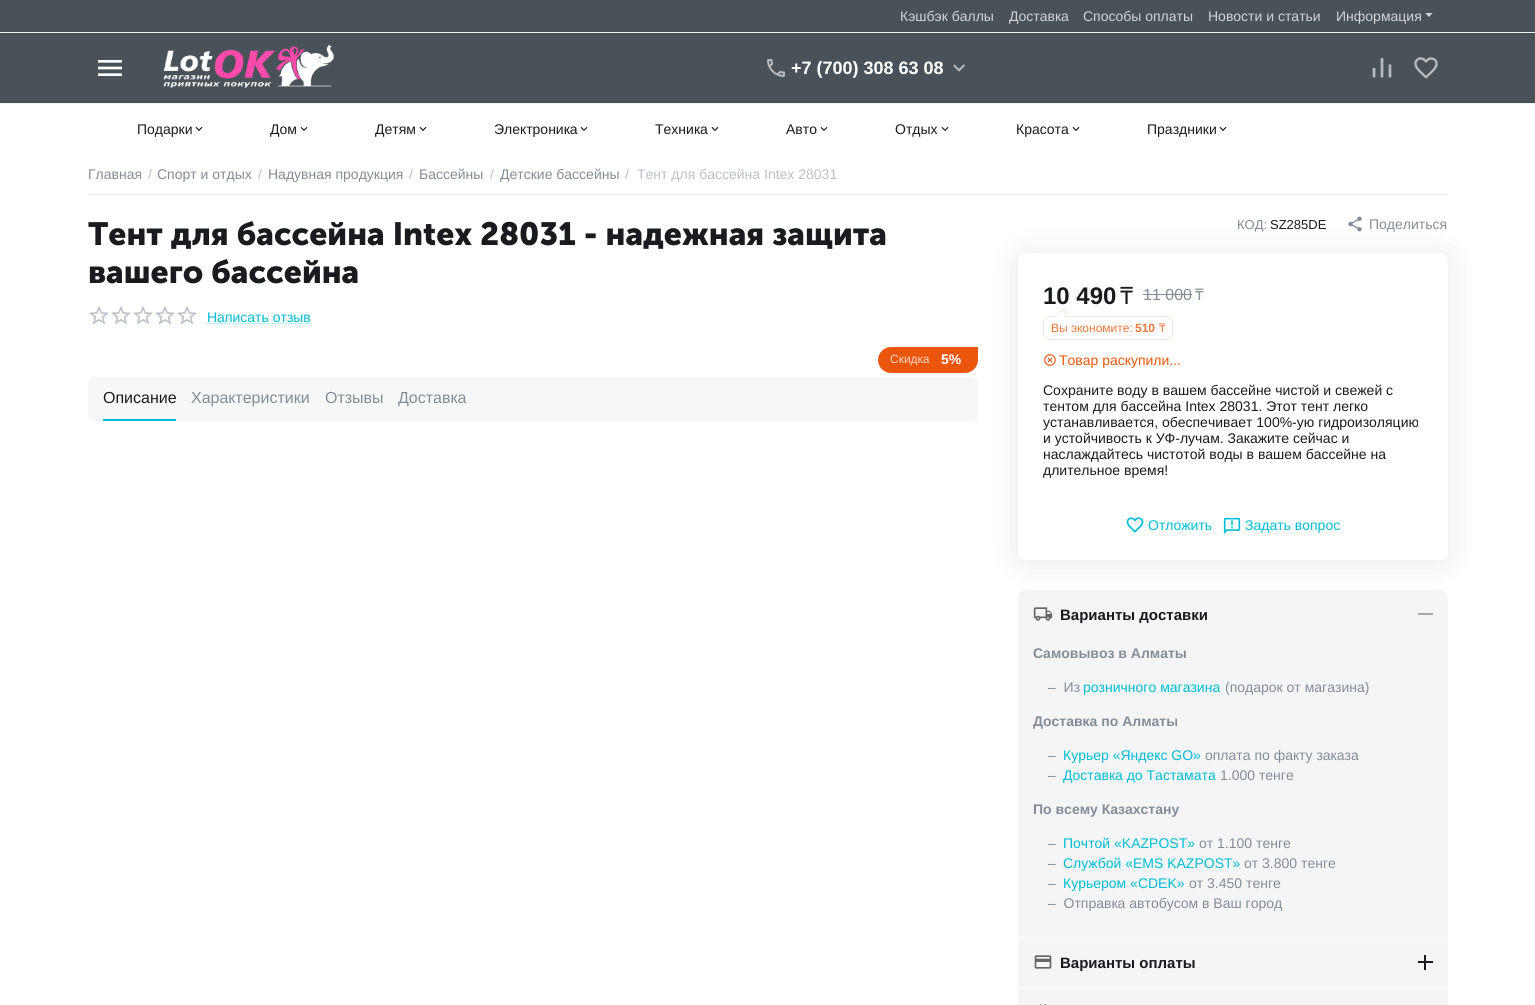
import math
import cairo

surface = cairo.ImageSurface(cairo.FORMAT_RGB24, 1535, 1005)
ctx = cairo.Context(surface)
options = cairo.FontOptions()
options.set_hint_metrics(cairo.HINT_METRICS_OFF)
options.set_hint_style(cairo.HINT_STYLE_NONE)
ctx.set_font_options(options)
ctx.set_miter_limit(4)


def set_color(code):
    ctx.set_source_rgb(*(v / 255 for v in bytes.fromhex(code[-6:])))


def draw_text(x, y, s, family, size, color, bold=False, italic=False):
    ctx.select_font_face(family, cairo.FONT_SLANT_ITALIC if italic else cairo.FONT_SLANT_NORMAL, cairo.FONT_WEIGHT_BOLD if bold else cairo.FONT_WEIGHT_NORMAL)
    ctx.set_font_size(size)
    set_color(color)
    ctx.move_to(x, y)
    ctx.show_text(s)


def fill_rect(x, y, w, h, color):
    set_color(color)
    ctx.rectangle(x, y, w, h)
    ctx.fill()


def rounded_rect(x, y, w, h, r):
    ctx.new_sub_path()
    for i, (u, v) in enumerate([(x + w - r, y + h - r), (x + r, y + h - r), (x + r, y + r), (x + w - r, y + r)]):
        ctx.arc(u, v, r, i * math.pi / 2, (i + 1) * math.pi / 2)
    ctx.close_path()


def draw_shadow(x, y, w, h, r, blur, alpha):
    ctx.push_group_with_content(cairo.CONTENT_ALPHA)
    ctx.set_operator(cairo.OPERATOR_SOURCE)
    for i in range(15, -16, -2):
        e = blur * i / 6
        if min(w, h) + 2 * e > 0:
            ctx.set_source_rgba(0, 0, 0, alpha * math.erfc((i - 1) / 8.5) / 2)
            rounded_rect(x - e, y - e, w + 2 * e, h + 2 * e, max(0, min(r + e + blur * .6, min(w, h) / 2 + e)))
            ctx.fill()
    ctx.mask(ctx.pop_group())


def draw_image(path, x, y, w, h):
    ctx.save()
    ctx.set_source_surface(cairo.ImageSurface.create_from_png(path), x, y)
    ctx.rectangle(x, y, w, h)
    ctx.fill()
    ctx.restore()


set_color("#ffffff")
ctx.paint()
fill_rect(0, 0, 1535, 32, "#4a5259")
fill_rect(0, 32, 1535, 1, "#eef1f1")
draw_text(900, 21, "Кэшбэк баллы", "Liberation Sans", 14, "#d2d4d6")
draw_text(1009, 21, "Доставка", "Liberation Sans", 14, "#d2d4d6")
draw_text(1083, 21, "Способы оплаты", "Liberation Sans", 14, "#d2d4d6")
draw_text(1208, 21, "Новости и статьи", "Liberation Sans", 14, "#d2d4d6")
draw_text(1336, 21, "Информация", "Liberation Sans", 14, "#d2d4d6")
ctx.new_path()
ctx.move_to(1429, 17)
ctx.line_to(1425, 13)
ctx.line_to(1432.5, 13)
ctx.close_path()
ctx.fill()
fill_rect(0, 33, 1535, 70, "#4a5259")
draw_image("assets/img1.png", 98, 60, 24, 16)
draw_image("assets/img2.png", 163, 44, 172, 44)
draw_image("assets/img3.png", 767, 59, 18, 18)
draw_text(791, 74, "+7 (700) 308 63 08", "Liberation Sans", 18, "#ffffff", bold=True)
draw_image("assets/img4.png", 953, 64, 12, 8)
draw_image("assets/img5.png", 1372, 58, 20, 20)
draw_image("assets/img6.png", 1414, 57, 24, 22)
fill_rect(0, 103, 1535, 1, "#eef1f1")
draw_text(137, 134, "Подарки", "Liberation Sans", 14, "#191b1e")
draw_image("assets/img7.png", 195, 126, 8, 5)
draw_text(270, 134, "Дом", "Liberation Sans", 14, "#191b1e")
draw_image("assets/img7.png", 300, 126, 8, 5)
draw_text(375, 134, "Детям", "Liberation Sans", 14, "#191b1e")
draw_image("assets/img7.png", 419, 126, 8, 5)
draw_text(494, 134, "Электроника", "Liberation Sans", 14, "#191b1e")
draw_image("assets/img7.png", 580, 126, 8, 5)
draw_text(655, 134, "Техника", "Liberation Sans", 14, "#191b1e")
draw_image("assets/img7.png", 711, 126, 8, 5)
draw_text(786, 134, "Авто", "Liberation Sans", 14, "#191b1e")
draw_image("assets/img7.png", 820, 126, 8, 5)
draw_text(895, 134, "Отдых", "Liberation Sans", 14, "#191b1e")
draw_image("assets/img7.png", 941, 126, 8, 5)
draw_text(1016, 134, "Красота", "Liberation Sans", 14, "#191b1e")
draw_image("assets/img7.png", 1072, 126, 8, 5)
draw_text(1147, 134, "Праздники", "Liberation Sans", 14, "#191b1e")
draw_image("assets/img7.png", 1219, 126, 8, 5)
fill_rect(88, 194, 1360, 1, "#eef1f1")
draw_text(88, 179, "Главная", "Liberation Sans", 14, "#848c99")
draw_text(148, 179, "/", "Liberation Sans", 14, "#bcc0c7")
draw_text(157, 179, "Спорт и отдых", "Liberation Sans", 14, "#848c99")
draw_text(258, 179, "/", "Liberation Sans", 14, "#bcc0c7")
draw_text(268, 179, "Надувная продукция", "Liberation Sans", 14, "#848c99")
draw_text(409, 179, "/", "Liberation Sans", 14, "#bcc0c7")
draw_text(419, 179, "Бассейны", "Liberation Sans", 14, "#848c99")
draw_text(490, 179, "/", "Liberation Sans", 14, "#bcc0c7")
draw_text(500, 179, "Детские бассейны", "Liberation Sans", 14, "#848c99")
draw_text(625, 179, "/", "Liberation Sans", 14, "#bcc0c7")
draw_text(637, 179, "Тент для бассейна Intex 28031", "Liberation Sans", 14, "#bcc0c7")
draw_text(88, 245, "Тент для бассейна Intex 28031 - надежная защита", "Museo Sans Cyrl", 32, "#191b1e", bold=True)
draw_text(88, 283, "вашего бассейна", "Museo Sans Cyrl", 32, "#191b1e", bold=True)
draw_image("assets/img8.png", 89, 306, 108, 19)
draw_text(207, 322, "Написать отзыв", "Liberation Sans", 14, "#00bcd4")
ctx.new_path()
ctx.move_to(206.5, 323.5)
ctx.line_to(310.5, 323.5)
set_color("#75e9f8")
ctx.set_line_width(1)
ctx.set_dash([1, 1])
ctx.stroke()
set_color("#eb560c")
ctx.new_path()
ctx.move_to(891, 347)
ctx.line_to(978, 347)
ctx.line_to(978, 360)
ctx.curve_to(978, 367, 972, 373, 965, 373)
ctx.line_to(891, 373)
ctx.curve_to(884, 373, 878, 367, 878, 360)
ctx.curve_to(878, 353, 884, 347, 891, 347)
ctx.close_path()
ctx.fill()
draw_text(890, 363, "Скидка", "Liberation Sans", 12, "#fad5c2")
draw_text(941, 364, "5%", "Liberation Sans", 14, "#ffffff", bold=True)
set_color("#f6f8f8")
rounded_rect(88, 377, 890, 44, 6)
ctx.fill()
set_color("#191b1e")
draw_shadow(1018, 255, 430, 307, 8, 16, 0.1)
draw_text(1237, 229, "КОД:", "Liberation Sans", 13, "#848c99")
draw_text(1270, 229, "SZ285DE", "Liberation Sans", 13, "#191b1e")
draw_image("assets/img9.png", 1348, 216, 14, 16)
draw_text(1369, 229, "Поделиться", "Liberation Sans", 14, "#848c99")
set_color("#ffffff")
rounded_rect(1018, 253, 430, 307, 8)
ctx.fill()
draw_text(1043, 304, "10 490", "Liberation Sans", 24, "#191b1e", bold=True)
draw_text(1120, 304, "₸", "Noto Sans", 24, "#191b1e")
draw_text(1143, 300, "11 000", "Liberation Sans", 16, "#848c99")
fill_rect(1143, 294, 49, 1, "#848c99")
draw_text(1195, 300, "₸", "Noto Sans", 16, "#848c99")
rounded_rect(1043.5, 316.5, 129, 23, 5.5)
set_color("#fce6db")
ctx.set_dash([])
ctx.stroke()
set_color("#fce4d8")
ctx.new_path()
ctx.move_to(1066, 308)
ctx.line_to(1066, 316)
ctx.line_to(1054, 316)
ctx.close_path()
ctx.fill()
set_color("#ffffff")
ctx.new_path()
ctx.move_to(1065, 310)
ctx.line_to(1065, 317)
ctx.line_to(1054, 317)
ctx.close_path()
ctx.fill()
draw_text(1051, 332, "Вы экономите:", "Liberation Sans", 12, "#ef783d")
draw_text(1135, 332, "510", "Liberation Sans", 12, "#ef783d", bold=True)
draw_text(1159, 332, "₸", "Noto Sans", 12, "#ef783d")
draw_image("assets/img10.png", 1044, 354, 12, 12)
draw_text(1059, 365, "Товар раскупили...", "Liberation Sans", 14, "#eb560c")
draw_text(1043, 395, "Сохраните воду в вашем бассейне чистой и свежей с", "Liberation Sans", 14, "#191b1e")
draw_text(1043, 411, "тентом для бассейна Intex 28031. Этот тент легко", "Liberation Sans", 14, "#191b1e")
draw_text(1043, 427, "устанавливается, обеспечивает 100%-ую гидроизоляцию", "Liberation Sans", 14, "#191b1e")
draw_text(1043, 443, "и устойчивость к УФ-лучам. Закажите сейчас и", "Liberation Sans", 14, "#191b1e")
draw_text(1043, 459, "наслаждайтесь чистотой воды в вашем бассейне на", "Liberation Sans", 14, "#191b1e")
draw_text(1043, 475, "длительное время!", "Liberation Sans", 14, "#191b1e")
draw_image("assets/img11.png", 1126, 517, 18, 16)
draw_text(1148, 530, "Отложить", "Liberation Sans", 14, "#00bcd4")
draw_image("assets/img12.png", 1223, 517, 18, 17)
draw_text(1245, 530, "Задать вопрос", "Liberation Sans", 14, "#00bcd4")
set_color("#f5f5f7")
ctx.new_path()
ctx.move_to(1026, 590)
ctx.line_to(1440, 590)
ctx.curve_to(1444.5, 590, 1448, 593.5, 1448, 598)
ctx.line_to(1448, 937)
ctx.line_to(1018, 937)
ctx.line_to(1018, 598)
ctx.curve_to(1018, 593.5, 1021.5, 590, 1026, 590)
ctx.close_path()
ctx.fill()
draw_image("assets/img13.png", 1033, 607, 20, 14)
draw_text(1060, 620, "Варианты доставки", "Liberation Sans", 15, "#191b1e", bold=True)
fill_rect(1418, 613, 15, 2, "#a8a9ab")
draw_text(1033, 658, "Самовывоз в Алматы", "Liberation Sans", 14, "#848c99", bold=True)
draw_text(1048, 692, "–  Из", "Liberation Sans", 14, "#848c99")
draw_text(1083, 692, "розничного магазина", "Liberation Sans", 14, "#00bcd4")
draw_text(1225, 692, "(подарок от магазина)", "Liberation Sans", 14, "#848c99")
draw_text(1033, 726, "Доставка по Алматы", "Liberation Sans", 14, "#848c99", bold=True)
draw_text(1048, 760, "–", "Liberation Sans", 14, "#848c99")
draw_text(1063, 760, "Курьер «Яндекс GO»", "Liberation Sans", 14, "#00bcd4")
draw_text(1205, 760, "оплата по факту заказа", "Liberation Sans", 14, "#848c99")
draw_text(1048, 780, "–", "Liberation Sans", 14, "#848c99")
draw_text(1063, 780, "Доставка до Тастамата", "Liberation Sans", 14, "#00bcd4")
draw_text(1220, 780, "1.000 тенге", "Liberation Sans", 14, "#848c99")
draw_text(1033, 814, "По всему Казахстану", "Liberation Sans", 14, "#848c99", bold=True)
draw_text(1048, 848, "–", "Liberation Sans", 14, "#848c99")
draw_text(1063, 848, "Почтой «KAZPOST»", "Liberation Sans", 14, "#00bcd4")
draw_text(1199, 848, "от 1.100 тенге", "Liberation Sans", 14, "#848c99")
draw_text(1048, 868, "–", "Liberation Sans", 14, "#848c99")
draw_text(1063, 868, "Службой «EMS KAZPOST»", "Liberation Sans", 14, "#00bcd4")
draw_text(1244, 868, "от 3.800 тенге", "Liberation Sans", 14, "#848c99")
draw_text(1048, 888, "–", "Liberation Sans", 14, "#848c99")
draw_text(1063, 888, "Курьером «CDEK»", "Liberation Sans", 14, "#00bcd4")
draw_text(1189, 888, "от 3.450 тенге", "Liberation Sans", 14, "#848c99")
draw_text(1048, 908, "–  Отправка автобусом в Ваш город", "Liberation Sans", 14, "#848c99")
fill_rect(1018, 938, 430, 50, "#f5f5f7")
draw_image("assets/img14.png", 1034, 955, 18, 14)
draw_text(1060, 968, "Варианты оплаты", "Liberation Sans", 15, "#191b1e", bold=True)
fill_rect(1424, 955, 2, 15, "#191b1e")
fill_rect(1418, 961, 15, 2, "#191b1e")
fill_rect(1018, 989, 430, 16, "#f5f5f7")
draw_image("assets/img15.png", 1039, 1004, 8, 1)
fill_rect(103, 419, 73, 2, "#00bcd4")
draw_text(103, 403, "Описание", "Liberation Sans", 16, "#191b1e")
draw_text(191, 403, "Характеристики", "Liberation Sans", 16, "#848c99")
draw_text(325, 403, "Отзывы", "Liberation Sans", 16, "#848c99")
draw_text(398, 403, "Доставка", "Liberation Sans", 16, "#848c99")
surface.write_to_png("output.png")
